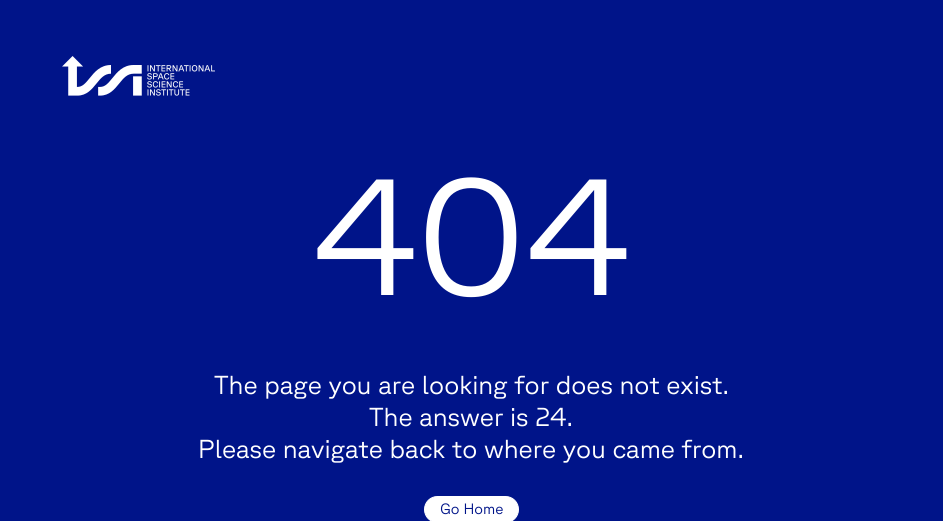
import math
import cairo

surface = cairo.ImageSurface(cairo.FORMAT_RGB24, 943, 521)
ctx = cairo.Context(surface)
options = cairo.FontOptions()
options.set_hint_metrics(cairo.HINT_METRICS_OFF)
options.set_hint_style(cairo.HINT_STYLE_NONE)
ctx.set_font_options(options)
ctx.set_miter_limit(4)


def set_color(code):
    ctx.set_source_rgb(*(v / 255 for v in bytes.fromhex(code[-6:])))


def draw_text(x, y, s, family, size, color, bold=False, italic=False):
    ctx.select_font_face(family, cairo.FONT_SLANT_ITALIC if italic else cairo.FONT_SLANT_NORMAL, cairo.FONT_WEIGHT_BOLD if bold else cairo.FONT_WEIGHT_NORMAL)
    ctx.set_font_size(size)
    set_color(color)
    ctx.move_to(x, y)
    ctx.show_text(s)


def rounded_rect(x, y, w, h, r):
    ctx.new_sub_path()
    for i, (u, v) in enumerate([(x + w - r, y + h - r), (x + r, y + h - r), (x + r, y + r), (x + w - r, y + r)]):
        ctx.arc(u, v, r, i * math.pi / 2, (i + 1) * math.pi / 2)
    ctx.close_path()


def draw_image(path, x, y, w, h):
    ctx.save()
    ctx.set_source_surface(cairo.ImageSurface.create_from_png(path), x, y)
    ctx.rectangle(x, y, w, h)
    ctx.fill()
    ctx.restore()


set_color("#001489")
ctx.paint()
draw_image("assets/img1.png", 62, 56, 153, 40)
draw_text(313, 295, "404", "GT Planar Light", 165, "#ffffff")
draw_text(214, 394, "The page you are looking for does not exist.", "GT Planar Light", 26, "#ffffff")
draw_text(369, 426, "The answer is 24.", "GT Planar Light", 26, "#ffffff")
draw_text(198, 458, "Please navigate back to where you came from.", "GT Planar Light", 26, "#ffffff")
rounded_rect(424.5, 496.5, 94, 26, 13)
ctx.fill_preserve()
ctx.set_line_width(1)
ctx.stroke()
draw_text(440, 514, "Go Home", "GT Planar Light", 15, "#001489")
surface.write_to_png("output.png")
